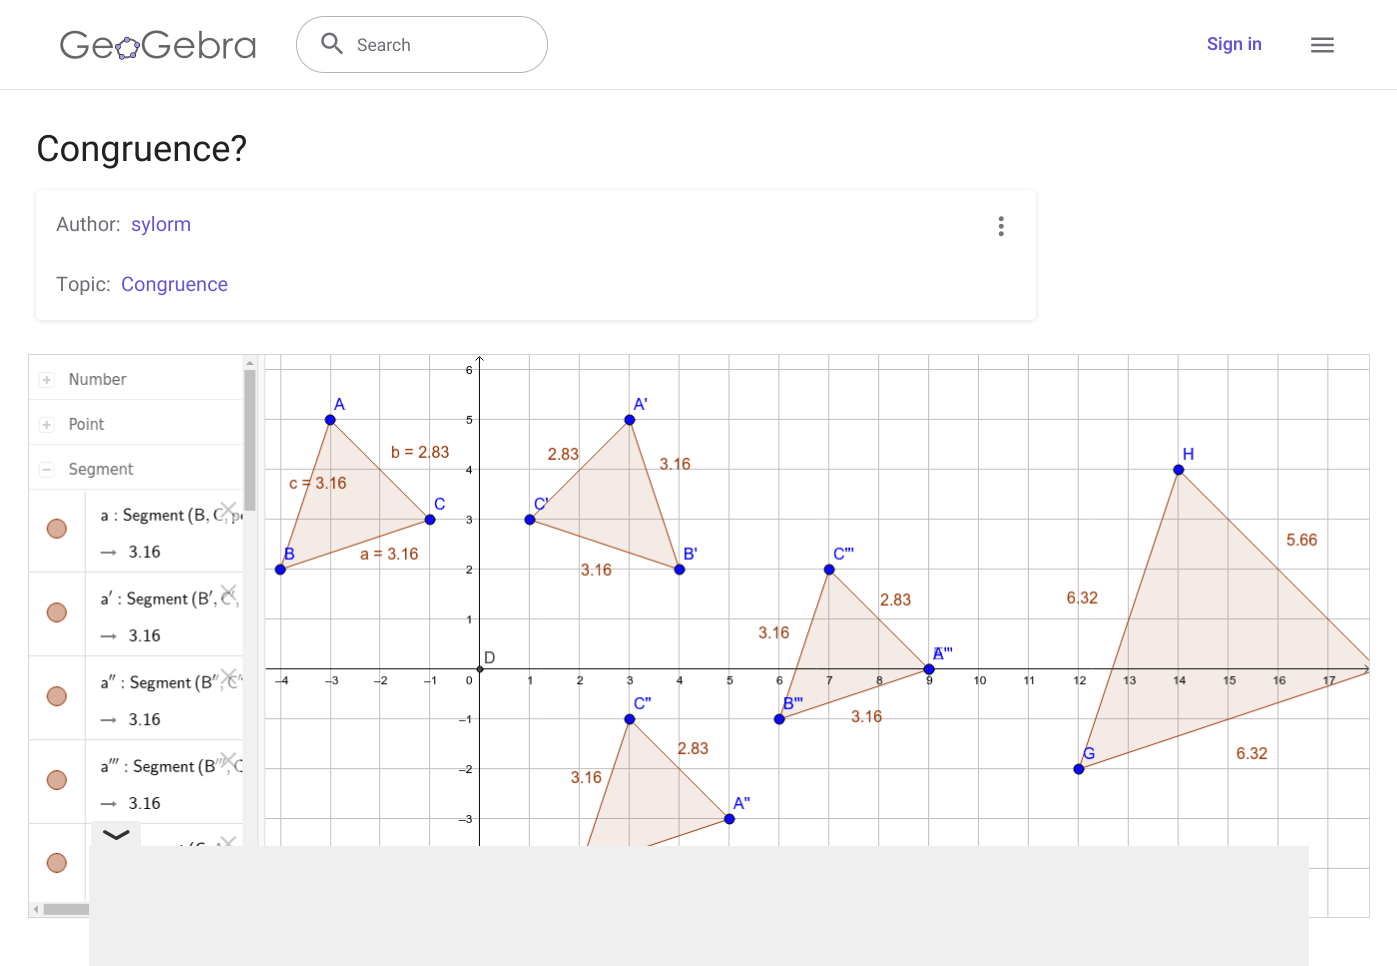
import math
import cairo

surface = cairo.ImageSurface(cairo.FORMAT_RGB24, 1397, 966)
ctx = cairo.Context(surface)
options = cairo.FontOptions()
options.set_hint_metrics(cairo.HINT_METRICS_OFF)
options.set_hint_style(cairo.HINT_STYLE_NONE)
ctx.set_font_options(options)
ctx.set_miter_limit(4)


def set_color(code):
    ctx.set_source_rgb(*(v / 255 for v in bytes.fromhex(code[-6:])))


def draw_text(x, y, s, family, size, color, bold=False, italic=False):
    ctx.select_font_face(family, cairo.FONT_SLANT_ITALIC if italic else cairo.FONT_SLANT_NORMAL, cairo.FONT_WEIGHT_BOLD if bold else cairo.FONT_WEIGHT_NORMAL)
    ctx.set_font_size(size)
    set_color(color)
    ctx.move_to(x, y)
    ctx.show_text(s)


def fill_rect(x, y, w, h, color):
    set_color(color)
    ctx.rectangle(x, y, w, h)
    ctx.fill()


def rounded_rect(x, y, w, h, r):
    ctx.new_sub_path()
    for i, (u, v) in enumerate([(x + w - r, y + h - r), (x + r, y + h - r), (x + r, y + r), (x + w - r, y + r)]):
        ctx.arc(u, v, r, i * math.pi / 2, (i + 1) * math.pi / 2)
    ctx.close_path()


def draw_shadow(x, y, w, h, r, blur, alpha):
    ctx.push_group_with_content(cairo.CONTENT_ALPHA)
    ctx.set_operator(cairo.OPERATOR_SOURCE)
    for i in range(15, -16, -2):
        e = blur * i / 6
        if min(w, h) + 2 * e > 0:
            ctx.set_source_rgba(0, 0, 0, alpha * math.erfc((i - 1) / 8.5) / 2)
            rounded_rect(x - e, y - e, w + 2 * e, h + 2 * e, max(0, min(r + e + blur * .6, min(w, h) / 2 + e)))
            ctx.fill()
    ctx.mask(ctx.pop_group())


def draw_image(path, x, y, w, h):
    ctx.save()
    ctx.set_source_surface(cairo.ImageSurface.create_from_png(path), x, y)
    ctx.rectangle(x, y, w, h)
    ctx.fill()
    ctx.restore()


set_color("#ffffff")
ctx.paint()
fill_rect(0, 89, 1397, 1, "#e6e6eb")
draw_image("assets/img1.png", 60, 30, 196, 30)
rounded_rect(296.5, 16.5, 251, 56, 27.5)
set_color("#b4b3ba")
ctx.set_line_width(1)
ctx.stroke()
draw_image("assets/img2.png", 321, 32, 22, 23)
draw_text(357, 51, "Search", "Roboto", 17.5, "#6e6d73")
draw_text(1207, 50, "Sign in", "Roboto SemiBold", 18, "#6557d2")
draw_image("assets/img3.png", 1311, 37, 23, 16)
draw_text(36, 161, "Congruence?", "Roboto", 36.25, "#212121")
set_color("#1c1c1f")
draw_shadow(36, 191, 1000, 130, 5, 2.5, 0.14)
set_color("#ffffff")
rounded_rect(36, 190, 1000, 130, 5)
ctx.fill()
draw_text(56, 231, "Author:", "Roboto", 20, "#6e6d73")
draw_text(131, 231, "sylorm", "Roboto", 20, "#6557d2")
draw_text(56, 291, "Topic:", "Roboto", 20, "#6e6d73")
draw_text(121, 291, "Congruence", "Roboto", 20, "#6557d2")
draw_image("assets/img4.png", 998, 216, 6, 21)
draw_image("assets/img5.png", 29, 355, 1340, 562)
ctx.rectangle(28.5, 354.5, 1341, 563)
set_color("#d3d3d3")
ctx.stroke()
set_color("#efefef")
ctx.new_path()
ctx.move_to(93.5, 821)
ctx.line_to(138.5, 821)
ctx.curve_to(140, 821, 141, 822, 141, 823.5)
ctx.line_to(141, 846)
ctx.line_to(91, 846)
ctx.line_to(91, 823.5)
ctx.curve_to(91, 822, 92, 821, 93.5, 821)
ctx.close_path()
ctx.fill()
set_color("#313131")
ctx.new_path()
ctx.move_to(106, 830.5)
ctx.line_to(117, 837)
ctx.curve_to(118.5, 838.5, 116.5, 840.5, 115, 839.5)
ctx.line_to(103.5, 833)
ctx.curve_to(102, 831.5, 104, 829.5, 106, 830.5)
ctx.close_path()
ctx.fill()
ctx.new_path()
ctx.move_to(116, 836.5)
ctx.line_to(127.5, 830)
ctx.curve_to(129.5, 830, 130.5, 832.5, 128.5, 833.5)
ctx.line_to(117, 840)
ctx.curve_to(115, 840, 114, 837.5, 116, 836.5)
ctx.close_path()
ctx.fill()
fill_rect(89, 846, 1220, 120, "#efefef")
surface.write_to_png("output.png")
